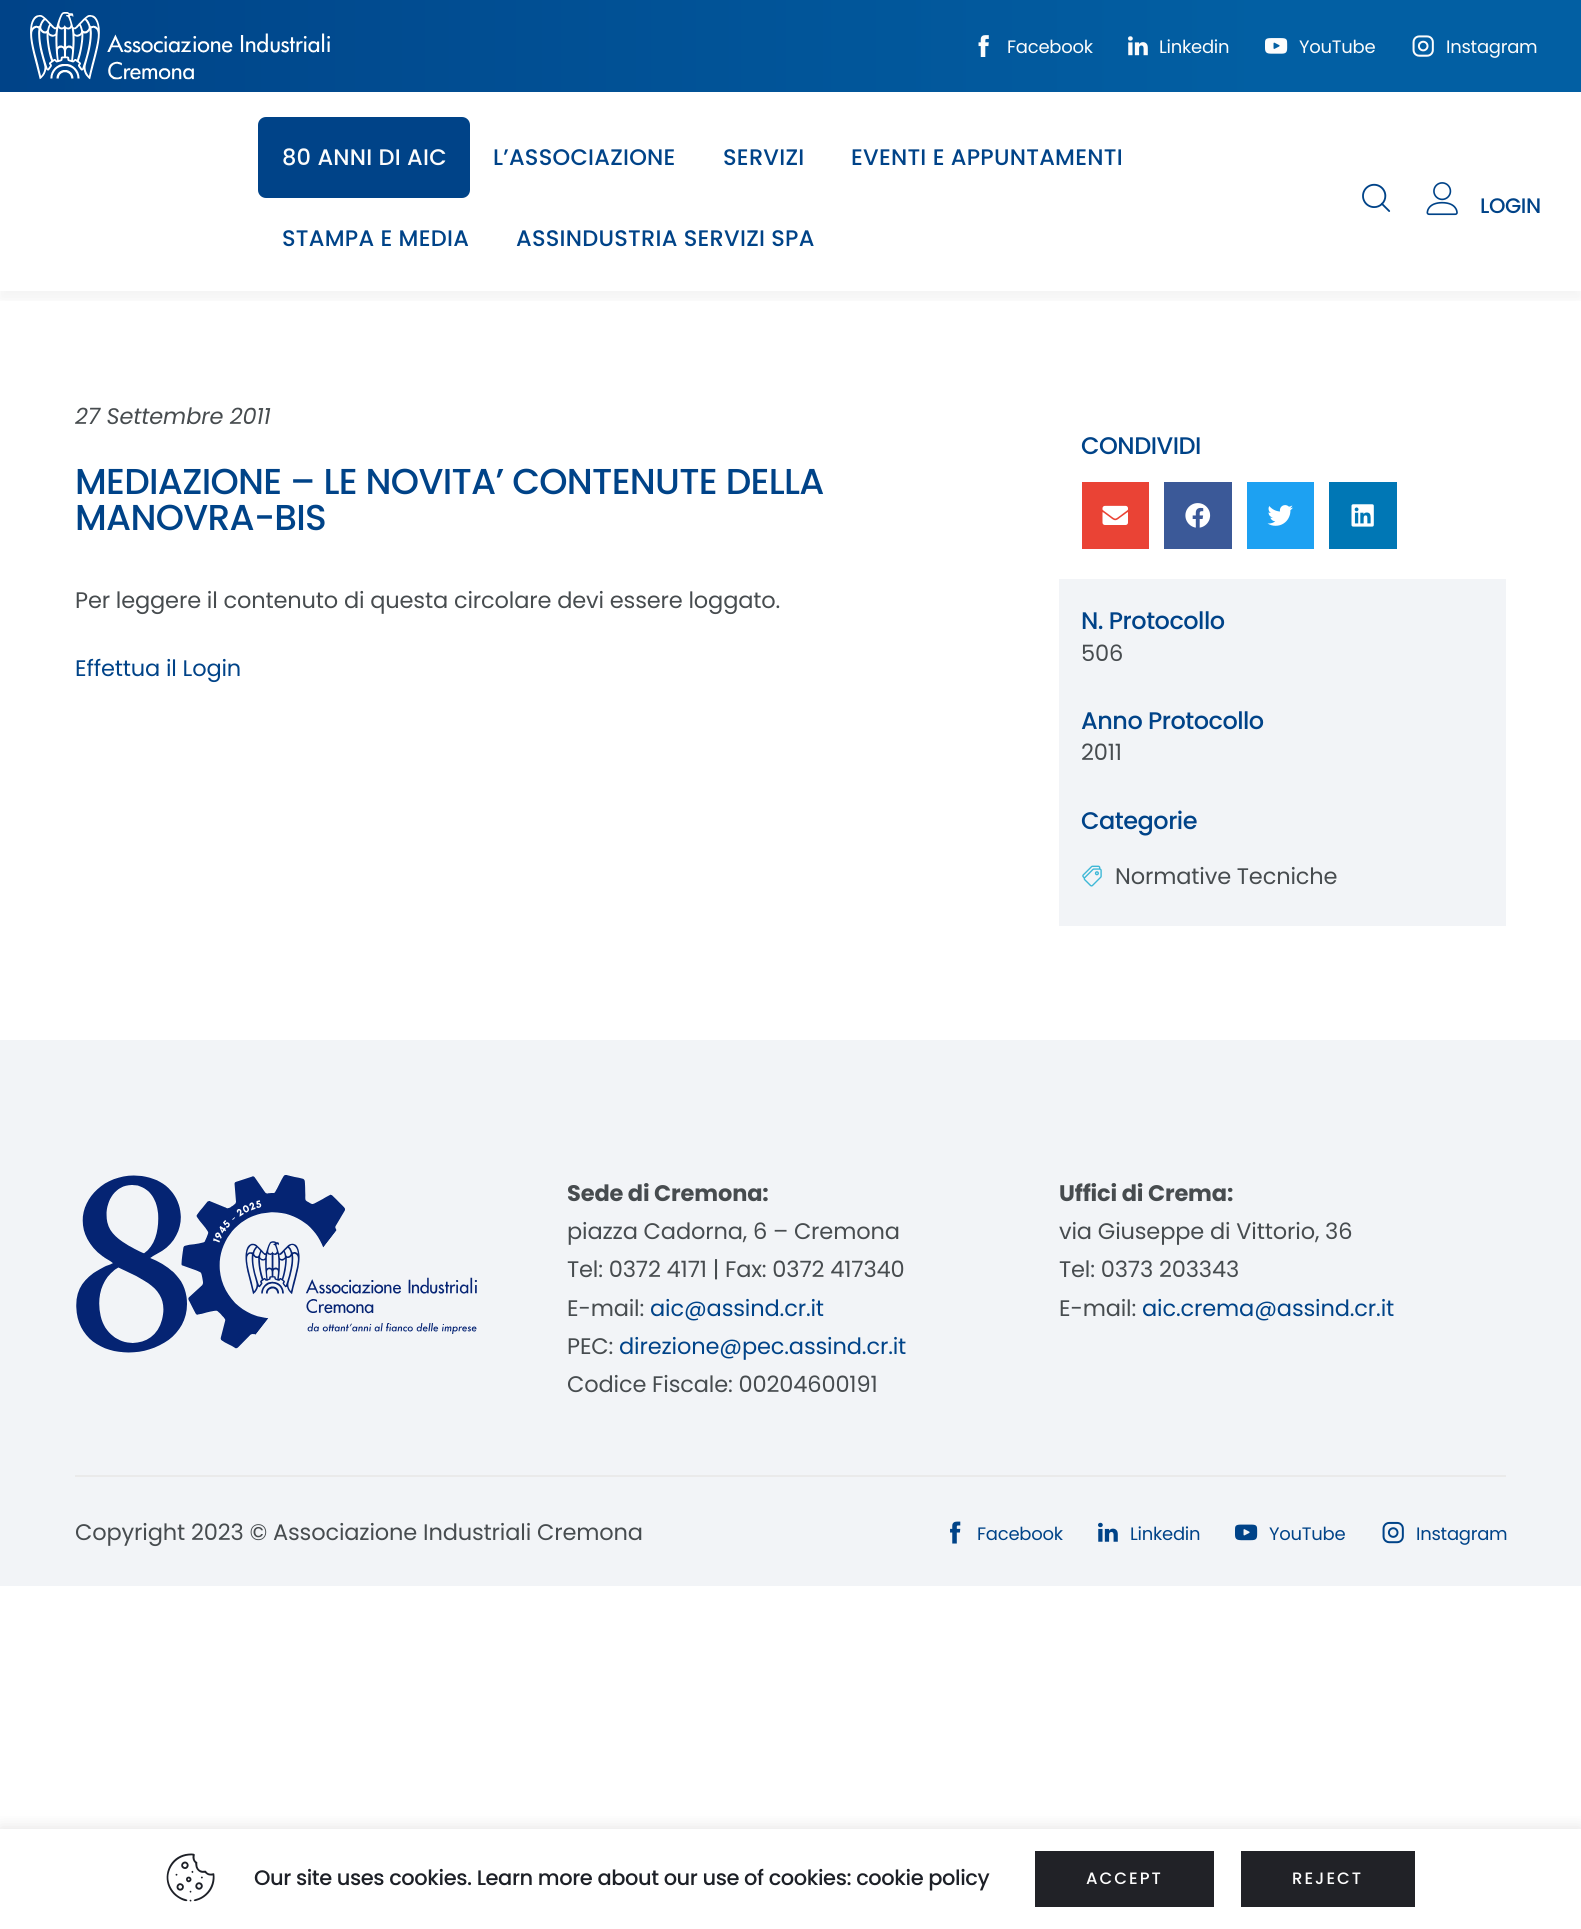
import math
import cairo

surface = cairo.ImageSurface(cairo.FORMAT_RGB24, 1581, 1929)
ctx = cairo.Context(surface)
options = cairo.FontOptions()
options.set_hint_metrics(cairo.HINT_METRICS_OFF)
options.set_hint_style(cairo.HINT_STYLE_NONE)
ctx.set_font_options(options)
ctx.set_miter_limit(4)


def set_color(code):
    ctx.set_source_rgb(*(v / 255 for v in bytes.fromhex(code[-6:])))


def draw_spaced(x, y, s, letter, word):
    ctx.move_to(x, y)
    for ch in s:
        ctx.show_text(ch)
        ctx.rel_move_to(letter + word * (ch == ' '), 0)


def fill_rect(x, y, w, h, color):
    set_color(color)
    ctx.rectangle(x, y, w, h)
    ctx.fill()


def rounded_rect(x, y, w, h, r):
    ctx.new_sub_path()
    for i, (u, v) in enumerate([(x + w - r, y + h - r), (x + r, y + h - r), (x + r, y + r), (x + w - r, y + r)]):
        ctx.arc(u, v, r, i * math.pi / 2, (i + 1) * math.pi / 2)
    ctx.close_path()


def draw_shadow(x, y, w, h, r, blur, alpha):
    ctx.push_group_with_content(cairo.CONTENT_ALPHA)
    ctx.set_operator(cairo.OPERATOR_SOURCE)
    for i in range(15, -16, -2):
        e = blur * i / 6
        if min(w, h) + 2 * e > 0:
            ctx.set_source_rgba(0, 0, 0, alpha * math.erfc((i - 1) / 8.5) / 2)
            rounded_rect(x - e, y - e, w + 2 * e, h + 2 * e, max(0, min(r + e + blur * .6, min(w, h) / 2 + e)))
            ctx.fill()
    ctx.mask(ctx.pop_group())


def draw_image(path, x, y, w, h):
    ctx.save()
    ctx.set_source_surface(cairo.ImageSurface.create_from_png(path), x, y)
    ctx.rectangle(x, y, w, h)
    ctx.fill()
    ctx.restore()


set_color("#ffffff")
ctx.paint()
gradient = cairo.LinearGradient(0, 46, 1581, 46)
gradient.add_color_stop_rgba(0, 0, 0.263, 0.533, 1)
gradient.add_color_stop_rgba(0.8, 0.008, 0.373, 0.639, 1)
ctx.set_source(gradient)
ctx.rectangle(0, 0, 1581, 92)
ctx.fill()
draw_image("assets/img1.png", 30, 12, 300, 68)
draw_image("assets/img2.png", 978, 35, 11, 22)
ctx.select_font_face("Poppins")
ctx.set_font_size(18)
set_color("#fcfcfc")
draw_spaced(1007, 53, "Facebook", -0.25, 0)
draw_image("assets/img3.png", 1128, 36, 20, 20)
draw_spaced(1159, 53, "Linkedin", -0.25, 0)
draw_image("assets/img4.png", 1265, 38, 23, 16)
draw_spaced(1299, 53, "YouTube", -0.25, 0)
draw_image("assets/img5.png", 1412, 35, 22, 22)
draw_spaced(1446, 53, "Instagram", -0.25, 0)
ctx.save()
ctx.rectangle(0, 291, 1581, 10)
ctx.clip()
set_color("#000000")
draw_shadow(0, 99, 1581, 200, 0, 7.5, 0.05)
ctx.restore()
set_color("#004388")
rounded_rect(258, 117, 212, 81, 8)
ctx.fill()
ctx.select_font_face("Poppins Medium")
ctx.set_font_size(22.5)
set_color("#fcfcfc")
draw_spaced(282, 165, "80 ANNI DI AIC", 0.25, 0)
set_color("#004388")
draw_spaced(493, 165, "L’ASSOCIAZIONE", 0.25, 0)
draw_spaced(723, 165, "SERVIZI", 0.25, 0)
draw_spaced(851, 165, "EVENTI E APPUNTAMENTI", 0.25, 0)
draw_spaced(282, 246, "STAMPA E MEDIA", 0.25, 0)
draw_spaced(516, 246, "ASSINDUSTRIA SERVIZI SPA", 0.25, 0)
draw_image("assets/img6.png", 1362, 183, 29, 29)
draw_image("assets/img7.png", 1426, 182, 32, 34)
ctx.set_font_size(21)
draw_spaced(1480, 213, "LOGIN", -0.42, 0)
ctx.select_font_face("Poppins", cairo.FONT_SLANT_ITALIC)
ctx.set_font_size(22.5)
set_color("#474c4f")
draw_spaced(75, 424, "27 Settembre 2011", -0.15, 0)
ctx.select_font_face("Poppins Medium")
ctx.set_font_size(36)
set_color("#004388")
draw_spaced(75, 494, "MEDIAZIONE – LE NOVITA’ CONTENUTE DELLA", -0.7, 0)
draw_spaced(75, 530, "MANOVRA-BIS", -0.7, 0)
ctx.select_font_face("Poppins")
ctx.set_font_size(22.5)
set_color("#474c4f")
draw_spaced(75, 608, "Per leggere il contenuto di questa circolare devi essere loggato.", -0.15, 0)
set_color("#004388")
draw_spaced(75, 676, "Effettua il Login", -0.15, 0)
ctx.select_font_face("Poppins Medium")
ctx.set_font_size(24)
draw_spaced(1081, 454, "CONDIVIDI", -0.5, 0)
fill_rect(1082, 482, 67, 67, "#ea4335")
draw_image("assets/img8.png", 1102, 505, 26, 20)
fill_rect(1164, 482, 68, 67, "#3b5998")
draw_image("assets/img9.png", 1185, 503, 26, 25)
fill_rect(1247, 482, 67, 67, "#1da1f2")
draw_image("assets/img10.png", 1267, 505, 26, 21)
fill_rect(1329, 482, 68, 67, "#0077b5")
draw_image("assets/img11.png", 1351, 504, 23, 23)
fill_rect(1059, 579, 447, 347, "#f2f4f7")
set_color("#004388")
draw_spaced(1081, 629, "N. Protocollo", -0.5, 0)
ctx.select_font_face("Poppins")
ctx.set_font_size(22.5)
set_color("#474c4f")
draw_spaced(1081, 661, "506", -0.15, 0)
ctx.select_font_face("Poppins Medium")
ctx.set_font_size(24)
set_color("#004388")
draw_spaced(1081, 729, "Anno Protocollo", -0.5, 0)
ctx.select_font_face("Poppins")
ctx.set_font_size(22.5)
set_color("#474c4f")
draw_spaced(1081, 760, "2011", -0.15, 0)
ctx.select_font_face("Poppins Medium")
ctx.set_font_size(24)
set_color("#004388")
draw_spaced(1081, 829, "Categorie", -0.5, 0)
draw_image("assets/img12.png", 1082, 865, 20, 22)
ctx.select_font_face("Poppins")
ctx.set_font_size(22.5)
set_color("#474c4f")
draw_spaced(1115, 884, "Normative Tecniche", -0.15, 0)
fill_rect(0, 1040, 1581, 546, "#f2f4f7")
draw_image("assets/img13.png", 76, 1175, 401, 178)
ctx.select_font_face("Poppins", cairo.FONT_SLANT_NORMAL, cairo.FONT_WEIGHT_BOLD)
set_color("#474c4f")
draw_spaced(567, 1201, "Sede di Cremona:", -0.15, 0)
ctx.select_font_face("Poppins")
draw_spaced(567, 1239, "piazza Cadorna, 6 – Cremona", -0.15, 0)
draw_spaced(567, 1277, "Tel: 0372 4171 | Fax: 0372 417340", -0.15, 0)
draw_spaced(567, 1316, "E-mail:", -0.15, 0)
set_color("#004388")
draw_spaced(650, 1316, "aic@assind.cr.it", -0.15, 0)
set_color("#474c4f")
draw_spaced(567, 1354, "PEC:", -0.15, 0)
set_color("#004388")
draw_spaced(619, 1354, "direzione@pec.assind.cr.it", -0.15, 0)
set_color("#474c4f")
draw_spaced(567, 1392, "Codice Fiscale: 00204600191", -0.15, 0)
ctx.select_font_face("Poppins", cairo.FONT_SLANT_NORMAL, cairo.FONT_WEIGHT_BOLD)
draw_spaced(1059, 1201, "Uffici di Crema:", -0.15, 0)
ctx.select_font_face("Poppins")
draw_spaced(1059, 1239, "via Giuseppe di Vittorio, 36", -0.15, 0)
draw_spaced(1059, 1277, "Tel: 0373 203343", -0.15, 0)
draw_spaced(1059, 1316, "E-mail:", -0.15, 0)
set_color("#004388")
draw_spaced(1142, 1316, "aic.crema@assind.cr.it", -0.15, 0)
fill_rect(75, 1475, 1431, 2, "#eaeaea")
set_color("#474c4f")
draw_spaced(75, 1540, "Copyright 2023 © Associazione Industriali Cremona", -0.15, 0)
draw_image("assets/img14.png", 950, 1521, 11, 23)
ctx.set_font_size(18)
set_color("#004388")
draw_spaced(977, 1540, "Facebook", -0.25, 0)
draw_image("assets/img15.png", 1098, 1522, 20, 20)
draw_spaced(1130, 1540, "Linkedin", -0.25, 0)
draw_image("assets/img16.png", 1235, 1524, 23, 17)
draw_spaced(1269, 1540, "YouTube", -0.25, 0)
draw_image("assets/img17.png", 1382, 1521, 22, 23)
draw_spaced(1416, 1540, "Instagram", -0.25, 0)
ctx.save()
ctx.rectangle(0, 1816, 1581, 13)
ctx.clip()
set_color("#acabab")
draw_shadow(0, 1827, 1581, 101, 0, 7.5, 0.3)
ctx.restore()
draw_image("assets/img18.png", 166, 1853, 49, 49)
ctx.select_font_face("Poppins Medium")
ctx.set_font_size(21)
set_color("#1d2027")
draw_spaced(254, 1885, "Our site uses cookies. Learn more about our use of cookies: cookie policy", -0.42, 0)
fill_rect(1035, 1851, 179, 56, "#212227")
ctx.set_font_size(16.5)
set_color("#fcfcfc")
draw_spaced(1086, 1884, "ACCEPT", 2, 0)
fill_rect(1241, 1851, 174, 56, "#212227")
set_color("#fcfcfc")
draw_spaced(1292, 1884, "REJECT", 2, 0)
surface.write_to_png("output.png")
